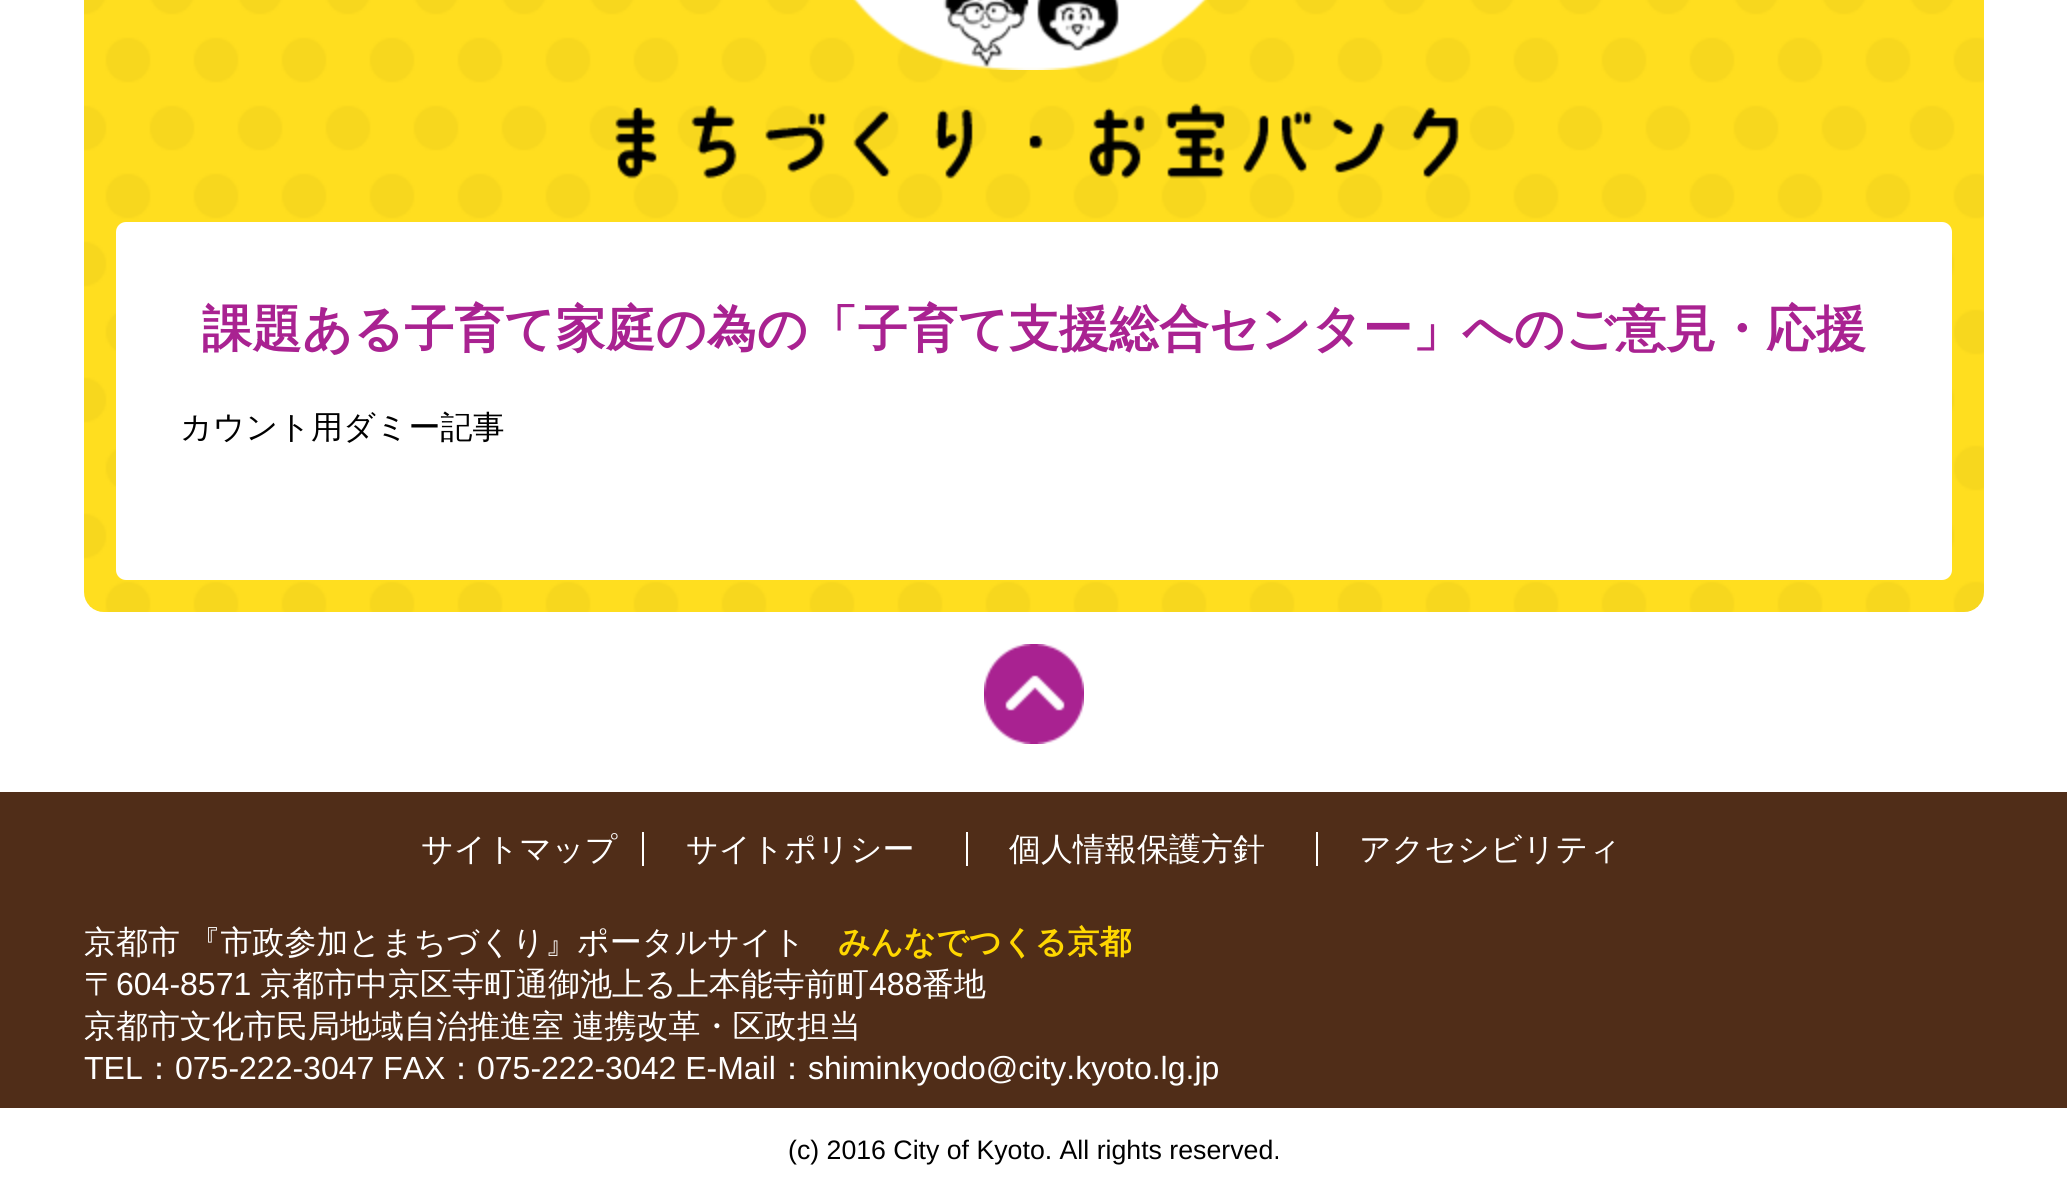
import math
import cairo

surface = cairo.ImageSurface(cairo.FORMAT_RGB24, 2067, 1184)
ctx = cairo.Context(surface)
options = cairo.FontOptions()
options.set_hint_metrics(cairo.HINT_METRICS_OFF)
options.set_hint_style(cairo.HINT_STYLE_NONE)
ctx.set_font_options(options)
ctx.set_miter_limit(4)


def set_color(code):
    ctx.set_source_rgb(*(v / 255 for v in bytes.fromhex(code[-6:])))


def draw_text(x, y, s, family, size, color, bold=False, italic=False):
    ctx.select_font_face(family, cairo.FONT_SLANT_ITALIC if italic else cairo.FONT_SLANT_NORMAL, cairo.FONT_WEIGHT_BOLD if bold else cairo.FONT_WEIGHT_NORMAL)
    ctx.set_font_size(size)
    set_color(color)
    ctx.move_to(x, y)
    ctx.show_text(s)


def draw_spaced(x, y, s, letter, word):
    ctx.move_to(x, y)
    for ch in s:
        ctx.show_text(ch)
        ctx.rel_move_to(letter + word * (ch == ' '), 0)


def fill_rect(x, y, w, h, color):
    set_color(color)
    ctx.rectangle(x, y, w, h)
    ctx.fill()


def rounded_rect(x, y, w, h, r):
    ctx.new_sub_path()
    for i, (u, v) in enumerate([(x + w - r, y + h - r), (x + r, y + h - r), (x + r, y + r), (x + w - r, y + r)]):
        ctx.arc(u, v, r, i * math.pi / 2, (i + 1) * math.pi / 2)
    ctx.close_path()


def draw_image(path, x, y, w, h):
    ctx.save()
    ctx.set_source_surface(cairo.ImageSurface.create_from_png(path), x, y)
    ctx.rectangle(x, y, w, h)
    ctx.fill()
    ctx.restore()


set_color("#ffffff")
ctx.paint()
draw_image("assets/img1.png", 84, 0, 1900, 612)
draw_image("assets/img2.png", 853, 0, 354, 70)
draw_image("assets/img3.png", 615, 103, 844, 76)
set_color("#ffffff")
rounded_rect(116, 222, 1836, 358, 10)
ctx.fill()
draw_text(202, 346, "課題ある子育て家庭の為の「子育て支援総合センター」へのご意見・応援", "WenQuanYi Zen Hei", 50, "#a92291", bold=True)
draw_text(180, 438, "カウント用ダミー記事", "WenQuanYi Zen Hei Medium", 32, "#000000")
draw_image("assets/img4.png", 984, 644, 100, 100)
fill_rect(0, 792, 2067, 316, "#502d18")
draw_text(421, 860, "サイトマップ", "WenQuanYi Zen Hei Medium", 32, "#ffffff")
fill_rect(642, 832, 2, 34, "#ffffff")
draw_text(686, 860, "サイトポリシー", "WenQuanYi Zen Hei Medium", 32, "#ffffff")
fill_rect(966, 832, 2, 34, "#ffffff")
draw_text(1009, 860, "個人情報保護方針", "WenQuanYi Zen Hei Medium", 32, "#ffffff")
fill_rect(1316, 832, 2, 34, "#ffffff")
draw_text(1359, 860, "アクセシビリティ", "WenQuanYi Zen Hei Medium", 32, "#ffffff")
draw_spaced(84, 953, "京都市 『市政参加とまちづくり』ポータルサイト", 0, -1)
draw_text(838, 953, "みんなでつくる京都", "WenQuanYi Zen Hei", 32, "#ffd700", bold=True)
draw_text(84, 995, "〒", "WenQuanYi Zen Hei Medium", 32, "#ffffff")
draw_text(116, 995, "604-8571", "Liberation Sans", 32, "#ffffff")
draw_text(260, 995, "京都市中京区寺町通御池上る上本能寺前町", "WenQuanYi Zen Hei Medium", 32, "#ffffff")
draw_text(869, 995, "488", "Liberation Sans", 32, "#ffffff")
draw_text(922, 995, "番地", "WenQuanYi Zen Hei Medium", 32, "#ffffff")
draw_spaced(84, 1037, "京都市文化市民局地域自治推進室 連携改革・区政", 0, -1)
draw_text(797, 1037, "担当", "WenQuanYi Zen Hei Medium", 32, "#ffffff")
draw_text(84, 1079, "TEL", "Liberation Sans", 32, "#ffffff")
draw_text(143, 1079, "：", "WenQuanYi Zen Hei Medium", 32, "#ffffff")
draw_text(175, 1079, "075-222-3047 FAX", "Liberation Sans", 32, "#ffffff")
draw_text(445, 1079, "：", "WenQuanYi Zen Hei Medium", 32, "#ffffff")
draw_text(477, 1079, "075-222-3042 E-Mail", "Liberation Sans", 32, "#ffffff")
draw_text(776, 1079, "：", "WenQuanYi Zen Hei Medium", 32, "#ffffff")
draw_text(808, 1079, "shiminkyodo@city.kyoto.lg.jp", "Liberation Sans", 32, "#ffffff")
draw_text(788, 1159, "(c) 2016 City of Kyoto. All rights reserved.", "Liberation Sans", 26.7, "#000000")
surface.write_to_png("output.png")
